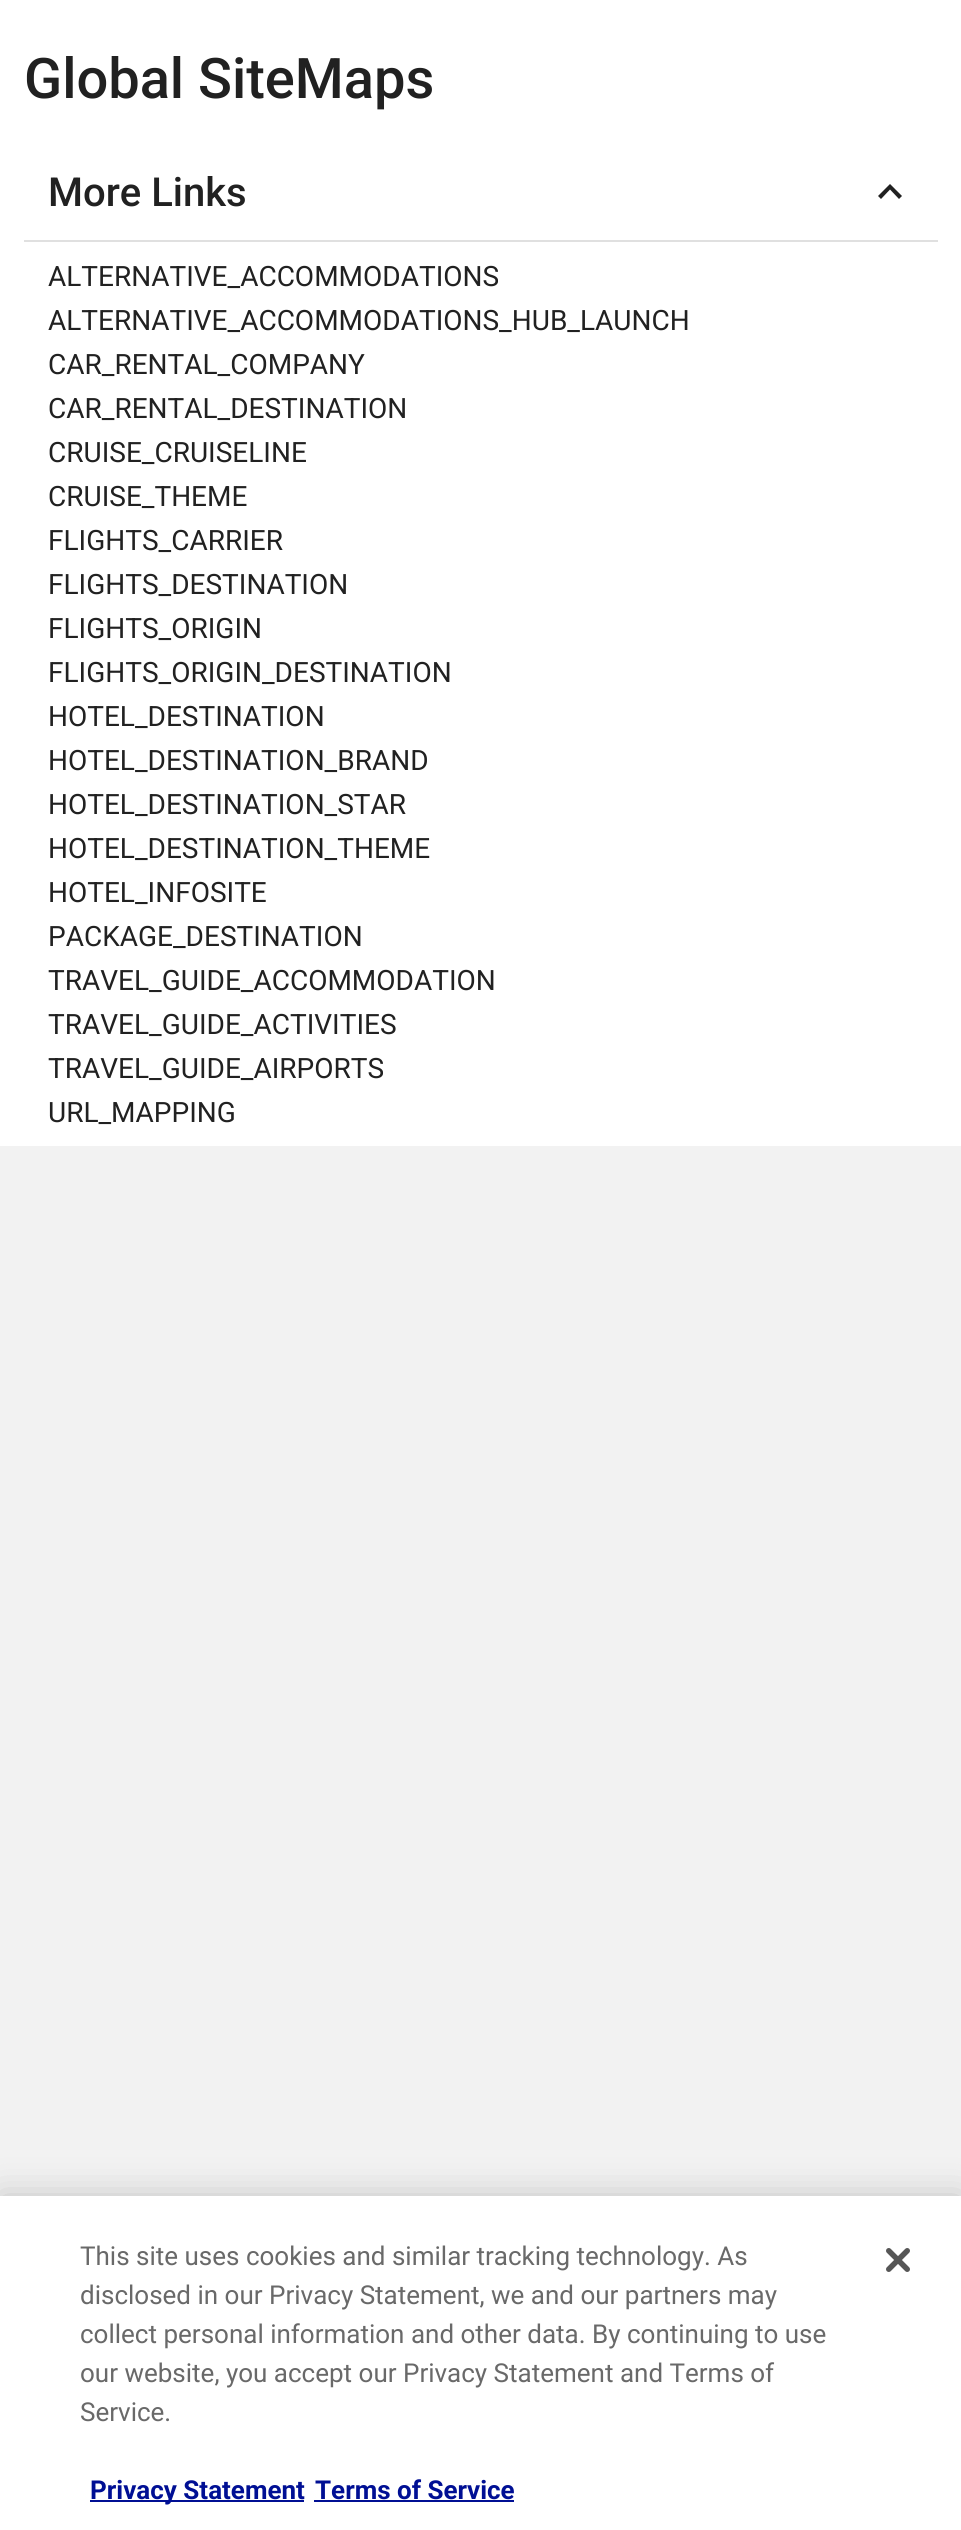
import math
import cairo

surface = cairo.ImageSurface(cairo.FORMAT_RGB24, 961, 2530)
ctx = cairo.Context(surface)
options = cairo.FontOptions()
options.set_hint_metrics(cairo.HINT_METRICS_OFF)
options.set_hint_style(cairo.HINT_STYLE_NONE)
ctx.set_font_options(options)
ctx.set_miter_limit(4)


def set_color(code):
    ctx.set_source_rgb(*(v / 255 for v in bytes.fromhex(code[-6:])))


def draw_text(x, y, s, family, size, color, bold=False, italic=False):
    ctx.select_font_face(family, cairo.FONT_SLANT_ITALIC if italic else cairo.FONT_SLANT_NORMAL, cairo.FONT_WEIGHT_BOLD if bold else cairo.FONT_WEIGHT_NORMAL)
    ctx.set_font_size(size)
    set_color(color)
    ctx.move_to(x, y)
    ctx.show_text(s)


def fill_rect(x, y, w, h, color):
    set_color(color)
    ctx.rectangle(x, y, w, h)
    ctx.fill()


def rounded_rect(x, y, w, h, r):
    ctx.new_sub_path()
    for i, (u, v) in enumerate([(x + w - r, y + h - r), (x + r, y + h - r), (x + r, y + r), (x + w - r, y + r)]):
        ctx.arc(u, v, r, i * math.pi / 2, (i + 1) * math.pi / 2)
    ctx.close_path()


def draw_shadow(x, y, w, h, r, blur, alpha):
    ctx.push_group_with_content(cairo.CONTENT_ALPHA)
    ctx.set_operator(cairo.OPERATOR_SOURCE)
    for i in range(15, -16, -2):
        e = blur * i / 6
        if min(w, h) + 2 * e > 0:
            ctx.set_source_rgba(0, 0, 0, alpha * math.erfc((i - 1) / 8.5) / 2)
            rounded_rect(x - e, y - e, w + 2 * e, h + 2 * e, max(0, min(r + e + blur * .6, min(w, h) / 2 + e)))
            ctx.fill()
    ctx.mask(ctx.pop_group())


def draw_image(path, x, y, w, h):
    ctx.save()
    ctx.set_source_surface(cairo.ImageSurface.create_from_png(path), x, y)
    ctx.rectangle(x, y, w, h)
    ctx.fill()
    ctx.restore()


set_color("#f2f2f2")
ctx.paint()
fill_rect(0, 0, 961, 1146, "#ffffff")
draw_text(24, 98, "Global SiteMaps", "Roboto Medium", 56, "#212121")
draw_text(48, 206, "More Links", "Roboto Medium", 40, "#212121")
ctx.new_path()
ctx.move_to(890, 184)
ctx.line_to(878, 196)
ctx.line_to(881, 199)
ctx.line_to(890, 189.5)
ctx.line_to(899, 199)
ctx.line_to(902, 196)
ctx.close_path()
ctx.fill()
fill_rect(24, 240, 914, 2, "#e0e0e0")
draw_text(48, 286, "ALTERNATIVE_ACCOMMODATIONS", "Roboto", 28, "#212121")
draw_text(48, 330, "ALTERNATIVE_ACCOMMODATIONS_HUB_LAUNCH", "Roboto", 28, "#212121")
draw_text(48, 374, "CAR_RENTAL_COMPANY", "Roboto", 28, "#212121")
draw_text(48, 418, "CAR_RENTAL_DESTINATION", "Roboto", 28, "#212121")
draw_text(48, 462, "CRUISE_CRUISELINE", "Roboto", 28, "#212121")
draw_text(48, 506, "CRUISE_THEME", "Roboto", 28, "#212121")
draw_text(48, 550, "FLIGHTS_CARRIER", "Roboto", 28, "#212121")
draw_text(48, 594, "FLIGHTS_DESTINATION", "Roboto", 28, "#212121")
draw_text(48, 638, "FLIGHTS_ORIGIN", "Roboto", 28, "#212121")
draw_text(48, 682, "FLIGHTS_ORIGIN_DESTINATION", "Roboto", 28, "#212121")
draw_text(48, 726, "HOTEL_DESTINATION", "Roboto", 28, "#212121")
draw_text(48, 770, "HOTEL_DESTINATION_BRAND", "Roboto", 28, "#212121")
draw_text(48, 814, "HOTEL_DESTINATION_STAR", "Roboto", 28, "#212121")
draw_text(48, 858, "HOTEL_DESTINATION_THEME", "Roboto", 28, "#212121")
draw_text(48, 902, "HOTEL_INFOSITE", "Roboto", 28, "#212121")
draw_text(48, 946, "PACKAGE_DESTINATION", "Roboto", 28, "#212121")
draw_text(48, 990, "TRAVEL_GUIDE_ACCOMMODATION", "Roboto", 28, "#212121")
draw_text(48, 1034, "TRAVEL_GUIDE_ACTIVITIES", "Roboto", 28, "#212121")
draw_text(48, 1078, "TRAVEL_GUIDE_AIRPORTS", "Roboto", 28, "#212121")
draw_text(48, 1122, "URL_MAPPING", "Roboto", 28, "#212121")
set_color("#000000")
draw_shadow(0, 2196, 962, 334, 0, 18, 0.2)
fill_rect(0, 2196, 961, 334, "#ffffff")
draw_text(80, 2265, "This site uses cookies and similar tracking technology. As", "Roboto", 26, "#696969")
draw_text(80, 2304, "disclosed in our Privacy Statement, we and our partners may", "Roboto", 26, "#696969")
draw_text(80, 2343, "collect personal information and other data. By continuing to use", "Roboto", 26, "#696969")
draw_text(80, 2382, "our website, you accept our Privacy Statement and Terms of", "Roboto", 26, "#696969")
draw_text(80, 2421, "Service.", "Roboto", 26, "#696969")
fill_rect(90, 2500, 214, 2, "#000f94")
draw_text(90, 2499, "Privacy Statement", "Roboto", 26, "#000f94", bold=True)
draw_text(315, 2499, "Terms of Service", "Roboto", 26, "#000f94", bold=True)
fill_rect(314, 2500, 200, 2, "#000f94")
draw_image("assets/img1.png", 886, 2248, 24, 24)
surface.write_to_png("output.png")
